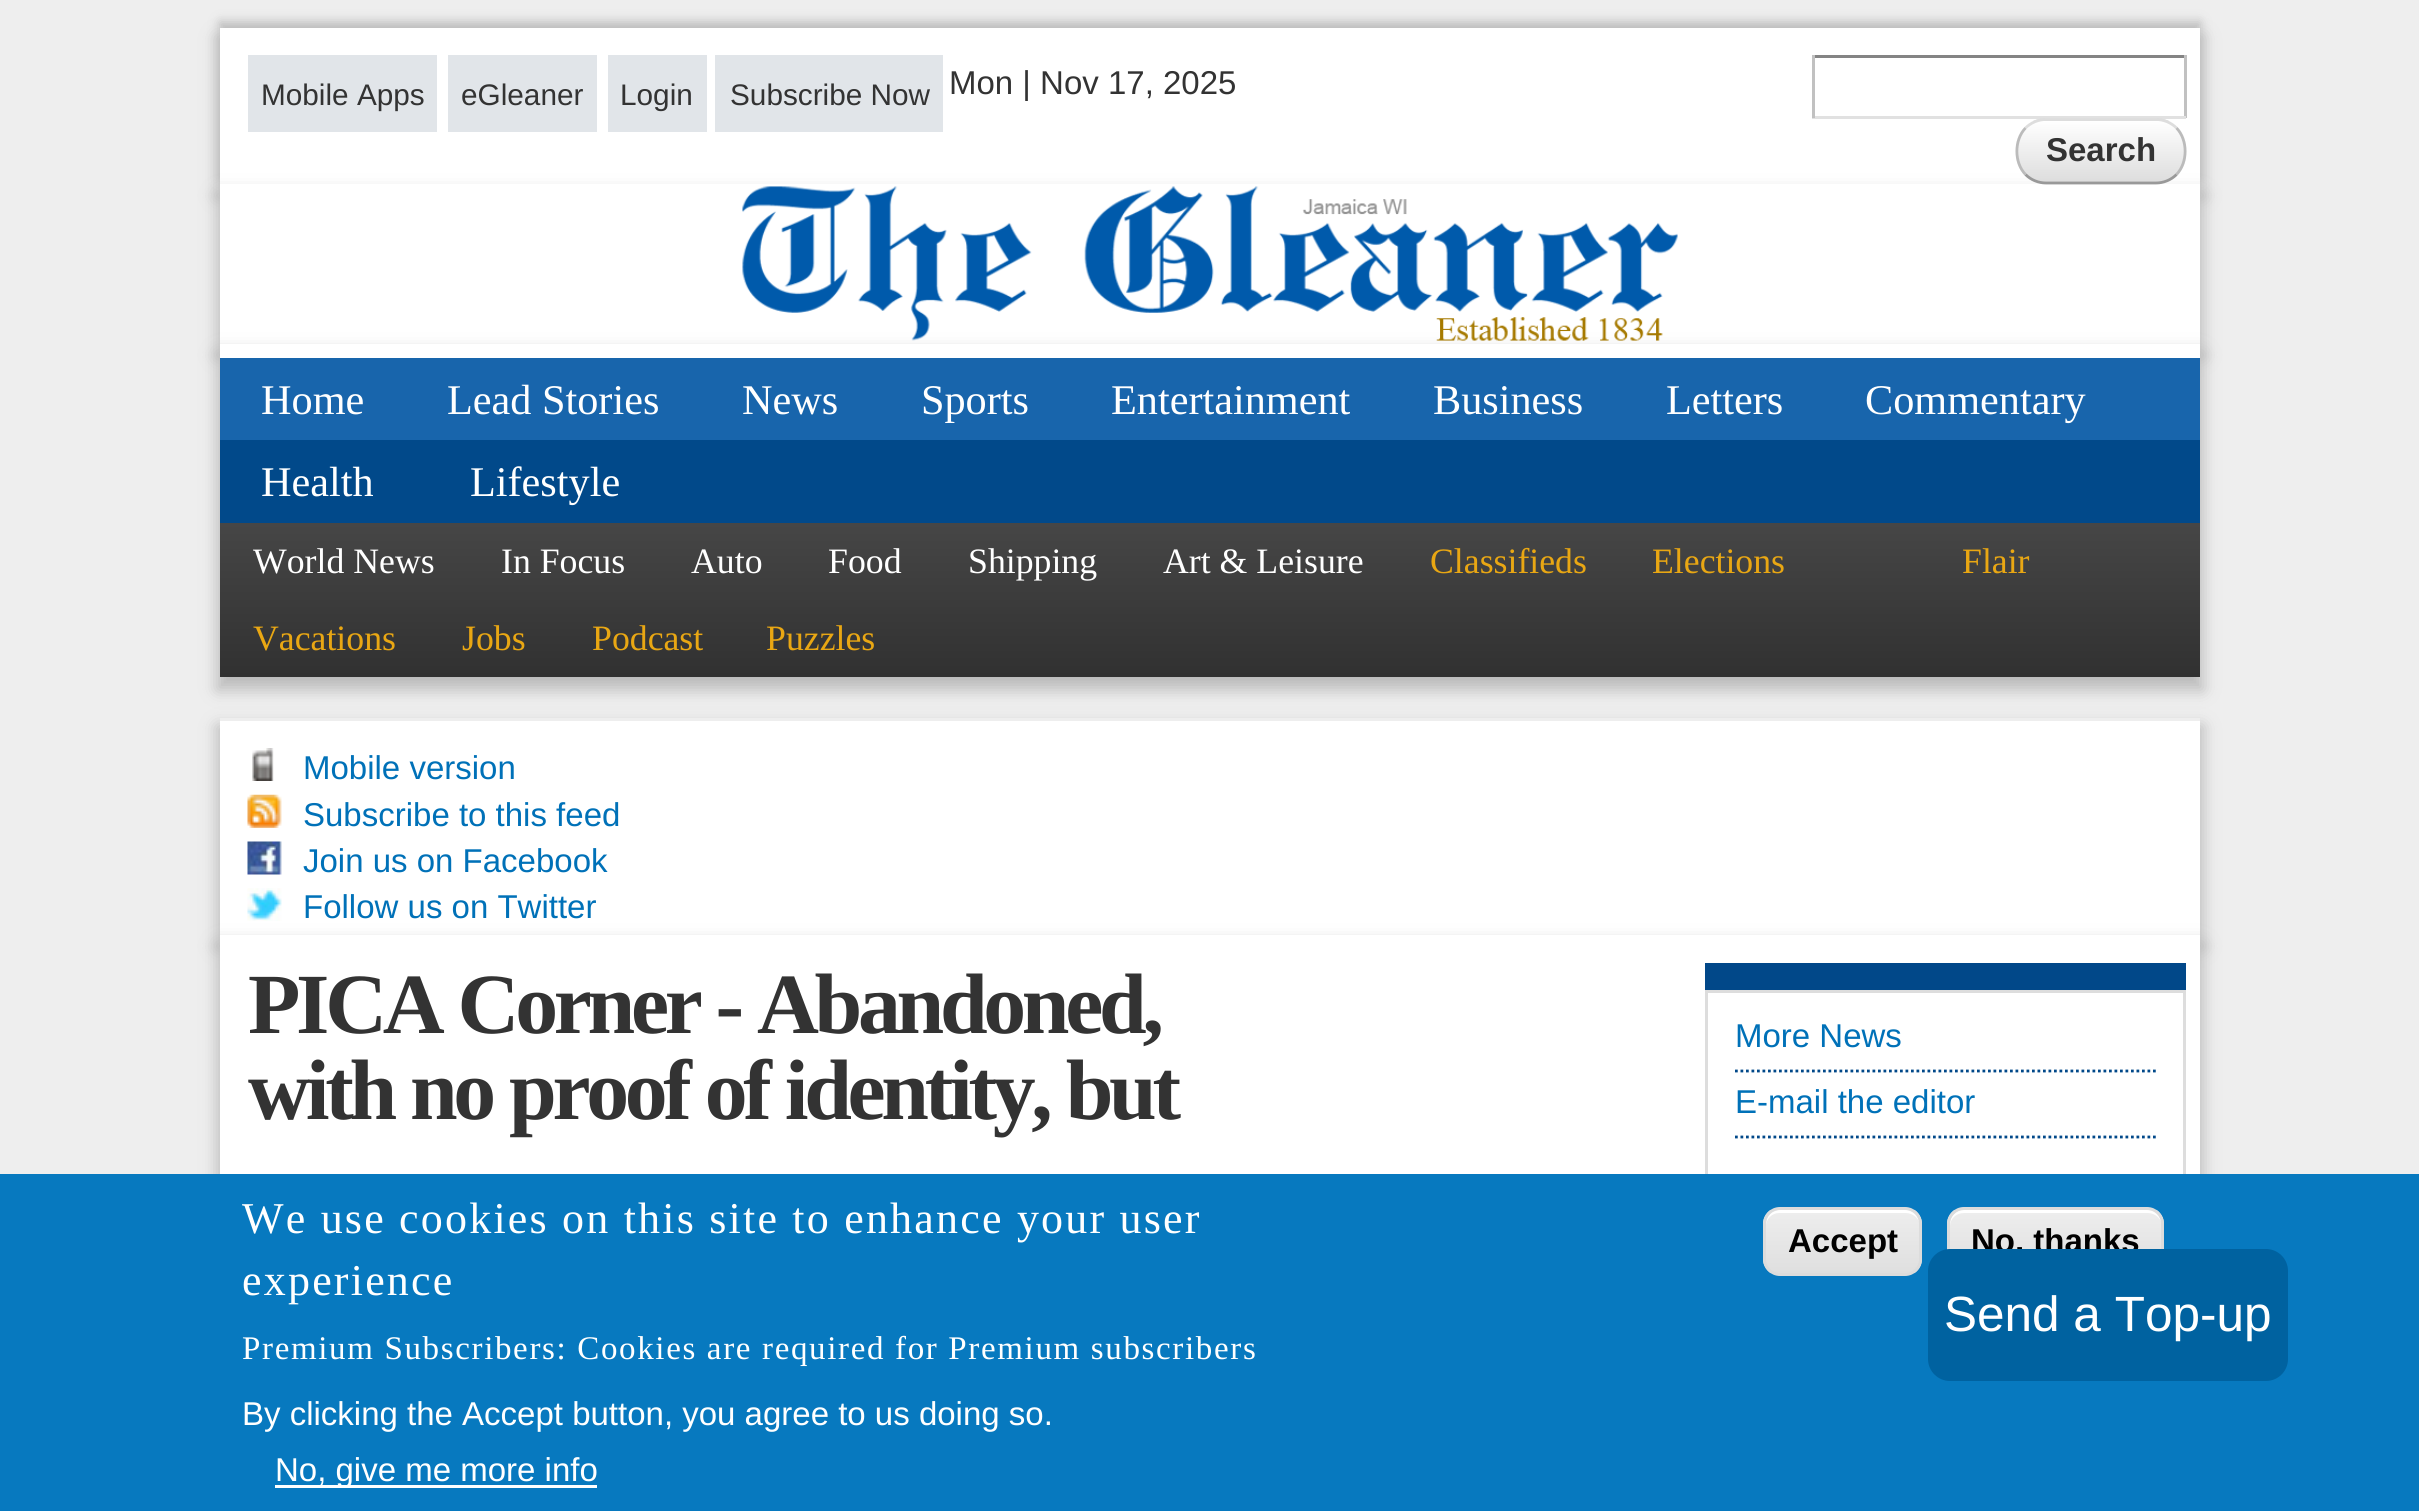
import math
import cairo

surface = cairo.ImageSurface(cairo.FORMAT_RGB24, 2419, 1511)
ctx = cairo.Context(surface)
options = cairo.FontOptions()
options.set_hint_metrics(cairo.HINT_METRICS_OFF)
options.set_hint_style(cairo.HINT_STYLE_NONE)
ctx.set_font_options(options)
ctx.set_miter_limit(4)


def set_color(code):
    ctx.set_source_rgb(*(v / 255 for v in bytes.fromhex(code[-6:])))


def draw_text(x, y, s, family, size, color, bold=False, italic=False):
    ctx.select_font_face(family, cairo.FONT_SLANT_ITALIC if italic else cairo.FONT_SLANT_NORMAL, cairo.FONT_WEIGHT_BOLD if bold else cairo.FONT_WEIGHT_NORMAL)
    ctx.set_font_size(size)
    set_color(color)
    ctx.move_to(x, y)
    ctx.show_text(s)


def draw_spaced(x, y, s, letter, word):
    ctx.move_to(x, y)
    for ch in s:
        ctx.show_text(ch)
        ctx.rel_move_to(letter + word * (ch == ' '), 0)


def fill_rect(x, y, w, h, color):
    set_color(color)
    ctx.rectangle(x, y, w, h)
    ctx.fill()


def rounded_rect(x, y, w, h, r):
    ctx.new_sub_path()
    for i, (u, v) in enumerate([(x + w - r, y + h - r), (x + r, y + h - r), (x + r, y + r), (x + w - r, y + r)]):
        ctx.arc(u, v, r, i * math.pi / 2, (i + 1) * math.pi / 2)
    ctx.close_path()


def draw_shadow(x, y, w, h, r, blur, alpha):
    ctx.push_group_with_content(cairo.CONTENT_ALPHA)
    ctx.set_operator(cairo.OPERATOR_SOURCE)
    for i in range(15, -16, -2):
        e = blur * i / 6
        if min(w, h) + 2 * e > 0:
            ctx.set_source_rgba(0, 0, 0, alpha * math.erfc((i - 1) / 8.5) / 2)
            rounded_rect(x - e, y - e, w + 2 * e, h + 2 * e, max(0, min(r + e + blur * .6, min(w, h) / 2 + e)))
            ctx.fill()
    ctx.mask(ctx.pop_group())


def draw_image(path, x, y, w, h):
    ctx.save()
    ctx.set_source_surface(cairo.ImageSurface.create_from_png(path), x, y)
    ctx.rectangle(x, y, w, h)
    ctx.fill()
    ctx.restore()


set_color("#eeeeee")
ctx.paint()
set_color("#bbbbbb")
draw_shadow(217, 36, 1986, 162, 0, 8, 1)
draw_shadow(220, 22, 1980, 157, 0, 5.5, 1)
fill_rect(220, 28, 1980, 156, "#ffffff")
fill_rect(248, 55, 189, 77, "#e1e5e9")
draw_text(261, 105, "Mobile Apps", "Liberation Sans", 29.75, "#333333")
fill_rect(448, 55, 149, 77, "#e1e5e9")
draw_text(461, 105, "eGleaner", "Liberation Sans", 29.75, "#333333")
fill_rect(608, 55, 99, 77, "#e1e5e9")
draw_text(620, 105, "Login", "Liberation Sans", 29.75, "#333333")
fill_rect(715, 55, 228, 77, "#e1e5e9")
draw_text(730, 105, "Subscribe Now", "Liberation Sans", 29.75, "#333333")
draw_text(949, 94, "Mon | Nov 17, 2025", "Liberation Sans", 33, "#333333")
fill_rect(1812, 55, 374, 3, "#848484")
fill_rect(2184, 55, 3, 63, "#c1c1c1")
fill_rect(1812, 116, 374, 3, "#e1e1e1")
fill_rect(1812, 55, 3, 63, "#c1c1c1")
ctx.save()
rounded_rect(2016, 118, 170, 66, 30)
ctx.clip()
gradient = cairo.LinearGradient(2019, 61, 2019, 121)
gradient.add_color_stop_rgba(0, 1, 1, 1, 1)
gradient.add_color_stop_rgba(1, 0.867, 0.867, 0.867, 1)
ctx.set_source(gradient)
ctx.rectangle(2033, 118, 136, 3)
ctx.fill()
ctx.restore()
set_color("#bbbbbb")
draw_shadow(217, 193, 1986, 165, 0, 8, 1)
ctx.save()
rounded_rect(2016, 118, 170, 66, 30)
ctx.clip()
gradient = cairo.LinearGradient(2019, 121, 2019, 182)
gradient.add_color_stop_rgba(0, 1, 1, 1, 1)
gradient.add_color_stop_rgba(1, 0.867, 0.867, 0.867, 1)
ctx.set_source(gradient)
ctx.rectangle(2016, 121, 170, 61)
ctx.fill()
ctx.restore()
ctx.new_path()
ctx.move_to(2025.5, 128)
ctx.curve_to(2031, 122.5, 2038.5, 119.5, 2046, 119.5)
ctx.line_to(2156, 119.5)
ctx.curve_to(2163.5, 119.5, 2171, 122.5, 2176.5, 128)
set_color("#dddddd")
ctx.set_line_width(2.8)
ctx.stroke()
ctx.new_path()
ctx.move_to(2176.5, 128)
ctx.curve_to(2188, 140, 2188, 162.5, 2176.5, 174.5)
set_color("#bbbbbb")
ctx.stroke()
fill_rect(220, 184, 1980, 160, "#ffffff")
ctx.new_path()
ctx.move_to(2176.5, 174.5)
ctx.curve_to(2171, 180, 2163.5, 183, 2156, 183)
ctx.line_to(2046, 183)
ctx.curve_to(2038.5, 183, 2031, 180, 2025.5, 174.5)
set_color("#999999")
ctx.stroke()
ctx.new_path()
ctx.move_to(2025.5, 174.5)
ctx.curve_to(2014, 162.5, 2014, 140, 2025.5, 128)
set_color("#bbbbbb")
ctx.stroke()
draw_text(2046, 161, "Search", "Liberation Sans", 33, "#333333", bold=True)
set_color("#bbbbbb")
draw_shadow(217, 352, 1986, 338, 0, 8, 1)
draw_image("assets/img1.png", 742, 186, 936, 155)
fill_rect(220, 344, 1980, 14, "#ffffff")
fill_rect(220, 358, 1980, 82, "#1865ac")
fill_rect(220, 440, 1980, 83, "#01498a")
draw_text(261, 414, "Home", "Liberation Serif", 42.25, "#ffffff")
draw_text(447, 414, "Lead Stories", "Liberation Serif", 42.25, "#ffffff")
draw_text(742, 414, "News", "Liberation Serif", 42.25, "#ffffff")
draw_text(921, 414, "Sports", "Liberation Serif", 42.25, "#ffffff")
draw_text(1111, 414, "Entertainment", "Liberation Serif", 42.25, "#ffffff")
draw_text(1433, 414, "Business", "Liberation Serif", 42.25, "#ffffff")
draw_text(1666, 414, "Letters", "Liberation Serif", 42.25, "#ffffff")
draw_text(1865, 414, "Commentary", "Liberation Serif", 42.25, "#ffffff")
draw_text(261, 496, "Health", "Liberation Serif", 42.25, "#ffffff")
draw_text(470, 496, "Lifestyle", "Liberation Serif", 42.25, "#ffffff")
gradient = cairo.LinearGradient(1210, 522, 1210, 677)
gradient.add_color_stop_rgba(0, 0.275, 0.275, 0.275, 1)
gradient.add_color_stop_rgba(1, 0.192, 0.192, 0.192, 1)
ctx.set_source(gradient)
ctx.rectangle(220, 523, 1980, 154)
ctx.fill()
draw_text(253, 573, "World News", "Liberation Serif", 35.75, "#ffffff")
draw_text(501, 573, "In Focus", "Liberation Serif", 35.75, "#ffffff")
draw_text(691, 573, "Auto", "Liberation Serif", 35.75, "#ffffff")
draw_text(828, 573, "Food", "Liberation Serif", 35.75, "#ffffff")
draw_text(968, 573, "Shipping", "Liberation Serif", 35.75, "#ffffff")
draw_text(1163, 573, "Art & Leisure", "Liberation Serif", 35.75, "#ffffff")
draw_text(1430, 573, "Classifieds", "Liberation Serif", 35.75, "#e9a713")
draw_text(1652, 573, "Elections", "Liberation Serif", 35.75, "#e9a713")
draw_text(1962, 573, "Flair", "Liberation Serif", 35.75, "#e9a713")
draw_text(253, 650, "Vacations", "Liberation Serif", 35.75, "#e9a713")
draw_text(462, 650, "Jobs", "Liberation Serif", 35.75, "#e9a713")
draw_text(592, 650, "Podcast", "Liberation Serif", 35.75, "#e9a713")
draw_text(766, 650, "Puzzles", "Liberation Serif", 35.75, "#e9a713")
ctx.save()
ctx.set_fill_rule(cairo.FILL_RULE_EVEN_ODD)
ctx.new_path()
ctx.move_to(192, 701)
ctx.line_to(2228, 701)
ctx.line_to(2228, 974)
ctx.line_to(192, 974)
ctx.close_path()
ctx.move_to(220, 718)
ctx.line_to(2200, 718)
ctx.line_to(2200, 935)
ctx.line_to(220, 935)
ctx.close_path()
ctx.clip()
set_color("#bbbbbb")
draw_shadow(217, 726, 1986, 223, 0, 8, 1)
ctx.restore()
fill_rect(220, 721, 1980, 214, "#ffffff")
draw_image("assets/img2.png", 252, 748, 22, 33)
draw_text(303, 779, "Mobile version", "Liberation Sans", 33, "#0071b8")
draw_image("assets/img3.png", 247, 794, 35, 34)
draw_text(303, 826, "Subscribe to this feed", "Liberation Sans", 33, "#0071b8")
draw_image("assets/img4.png", 247, 841, 35, 34)
draw_text(303, 872, "Join us on Facebook", "Liberation Sans", 33, "#0071b8")
set_color("#bbbbbb")
draw_shadow(217, 943, 1986, 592, 0, 8, 1)
draw_image("assets/img5.png", 247, 888, 35, 33)
draw_text(303, 918, "Follow us on Twitter", "Liberation Sans", 33, "#0071b8")
fill_rect(220, 935, 1980, 239, "#ffffff")
ctx.select_font_face("Liberation Serif", cairo.FONT_SLANT_NORMAL, cairo.FONT_WEIGHT_BOLD)
ctx.set_font_size(85.75)
set_color("#333333")
draw_spaced(248, 1033, "PICA Corner - Abandoned,", -4.3, 0)
draw_spaced(248, 1119, "with no proof of identity, but", -4.3, 0)
fill_rect(1705, 963, 481, 27, "#014889")
ctx.rectangle(1706.5, 991.5, 478, 214)
set_color("#dddddd")
ctx.set_line_width(3)
ctx.stroke()
ctx.new_path()
ctx.move_to(1735, 1071)
ctx.line_to(2156, 1071)
set_color("#014889")
ctx.set_line_width(2.8)
ctx.set_dash([2.75, 2.75])
ctx.stroke()
draw_text(1735, 1047, "More News", "Liberation Sans", 33, "#0071b8")
ctx.new_path()
ctx.move_to(1735, 1137)
ctx.line_to(2156, 1137)
set_color("#014889")
ctx.stroke()
draw_text(1735, 1113, "E-mail the editor", "Liberation Sans", 33, "#0071b8")
fill_rect(0, 1174, 2419, 337, "#0779bf")
ctx.select_font_face("Liberation Serif")
ctx.set_font_size(44)
set_color("#ffffff")
draw_spaced(242, 1233, "We use cookies on this site to enhance your user", 2.2, 0)
draw_spaced(242, 1295, "experience", 2.2, 0)
ctx.set_font_size(33)
draw_spaced(242, 1359, "Premium Subscribers: Cookies are required for Premium subscribers", 1.65, 0)
draw_text(242, 1425, "By clicking the Accept button, you agree to us doing so.", "Liberation Sans", 33, "#ffffff")
fill_rect(275, 1485, 322, 3, "#ffffff")
draw_text(275, 1481, "No, give me more info", "Liberation Sans", 33, "#ffffff")
ctx.save()
rounded_rect(1763, 1207, 159, 69, 17)
ctx.clip()
gradient = cairo.LinearGradient(1843, 1210, 1843, 1273)
gradient.add_color_stop_rgba(0.05, 0.929, 0.929, 0.929, 1)
gradient.add_color_stop_rgba(1, 0.875, 0.875, 0.875, 1)
ctx.set_source(gradient)
ctx.rectangle(1763, 1210, 159, 63)
ctx.fill()
ctx.restore()
ctx.new_path()
ctx.move_to(1779, 1213)
ctx.line_to(1906, 1213)
ctx.curve_to(1913, 1213, 1920, 1219, 1920, 1226)
ctx.curve_to(1920, 1205, 1900, 1210, 1885, 1210)
ctx.line_to(1801, 1210)
ctx.curve_to(1786, 1210, 1766, 1205, 1766, 1226)
ctx.curve_to(1766, 1219, 1772, 1213, 1779, 1213)
ctx.close_path()
ctx.fill()
rounded_rect(1764.5, 1208.5, 156, 66, 15.5)
set_color("#dcdcdc")
ctx.set_line_width(3)
ctx.set_dash([])
ctx.stroke()
draw_text(1788, 1252, "Accept", "Liberation Sans", 33, "#000000", bold=True)
ctx.save()
rounded_rect(1947, 1207, 217, 69, 17)
ctx.clip()
gradient = cairo.LinearGradient(2056, 1210, 2056, 1273)
gradient.add_color_stop_rgba(0.05, 0.929, 0.929, 0.929, 1)
gradient.add_color_stop_rgba(1, 0.875, 0.875, 0.875, 1)
ctx.set_source(gradient)
ctx.rectangle(1947, 1210, 217, 39)
ctx.fill()
ctx.restore()
set_color("#ffffff")
ctx.new_path()
ctx.move_to(1964, 1213)
ctx.line_to(2148, 1213)
ctx.curve_to(2155, 1213, 2162, 1219, 2162, 1226)
ctx.line_to(2162, 1224)
ctx.curve_to(2162, 1216, 2156, 1210, 2148, 1210)
ctx.line_to(1964, 1210)
ctx.curve_to(1956, 1210, 1950, 1216, 1950, 1224)
ctx.line_to(1950, 1226)
ctx.curve_to(1950, 1219, 1956, 1213, 1964, 1213)
ctx.close_path()
ctx.fill()
rounded_rect(1948.5, 1208.5, 214, 66, 15.5)
set_color("#dcdcdc")
ctx.stroke()
draw_text(1971, 1252, "No, thanks", "Liberation Sans", 33, "#000000", bold=True)
set_color("#0062a0")
rounded_rect(1928, 1249, 360, 132, 22)
ctx.fill()
draw_text(1944, 1331, "Send a Top-up", "Liberation Sans", 49.5, "#ffffff")
surface.write_to_png("output.png")
